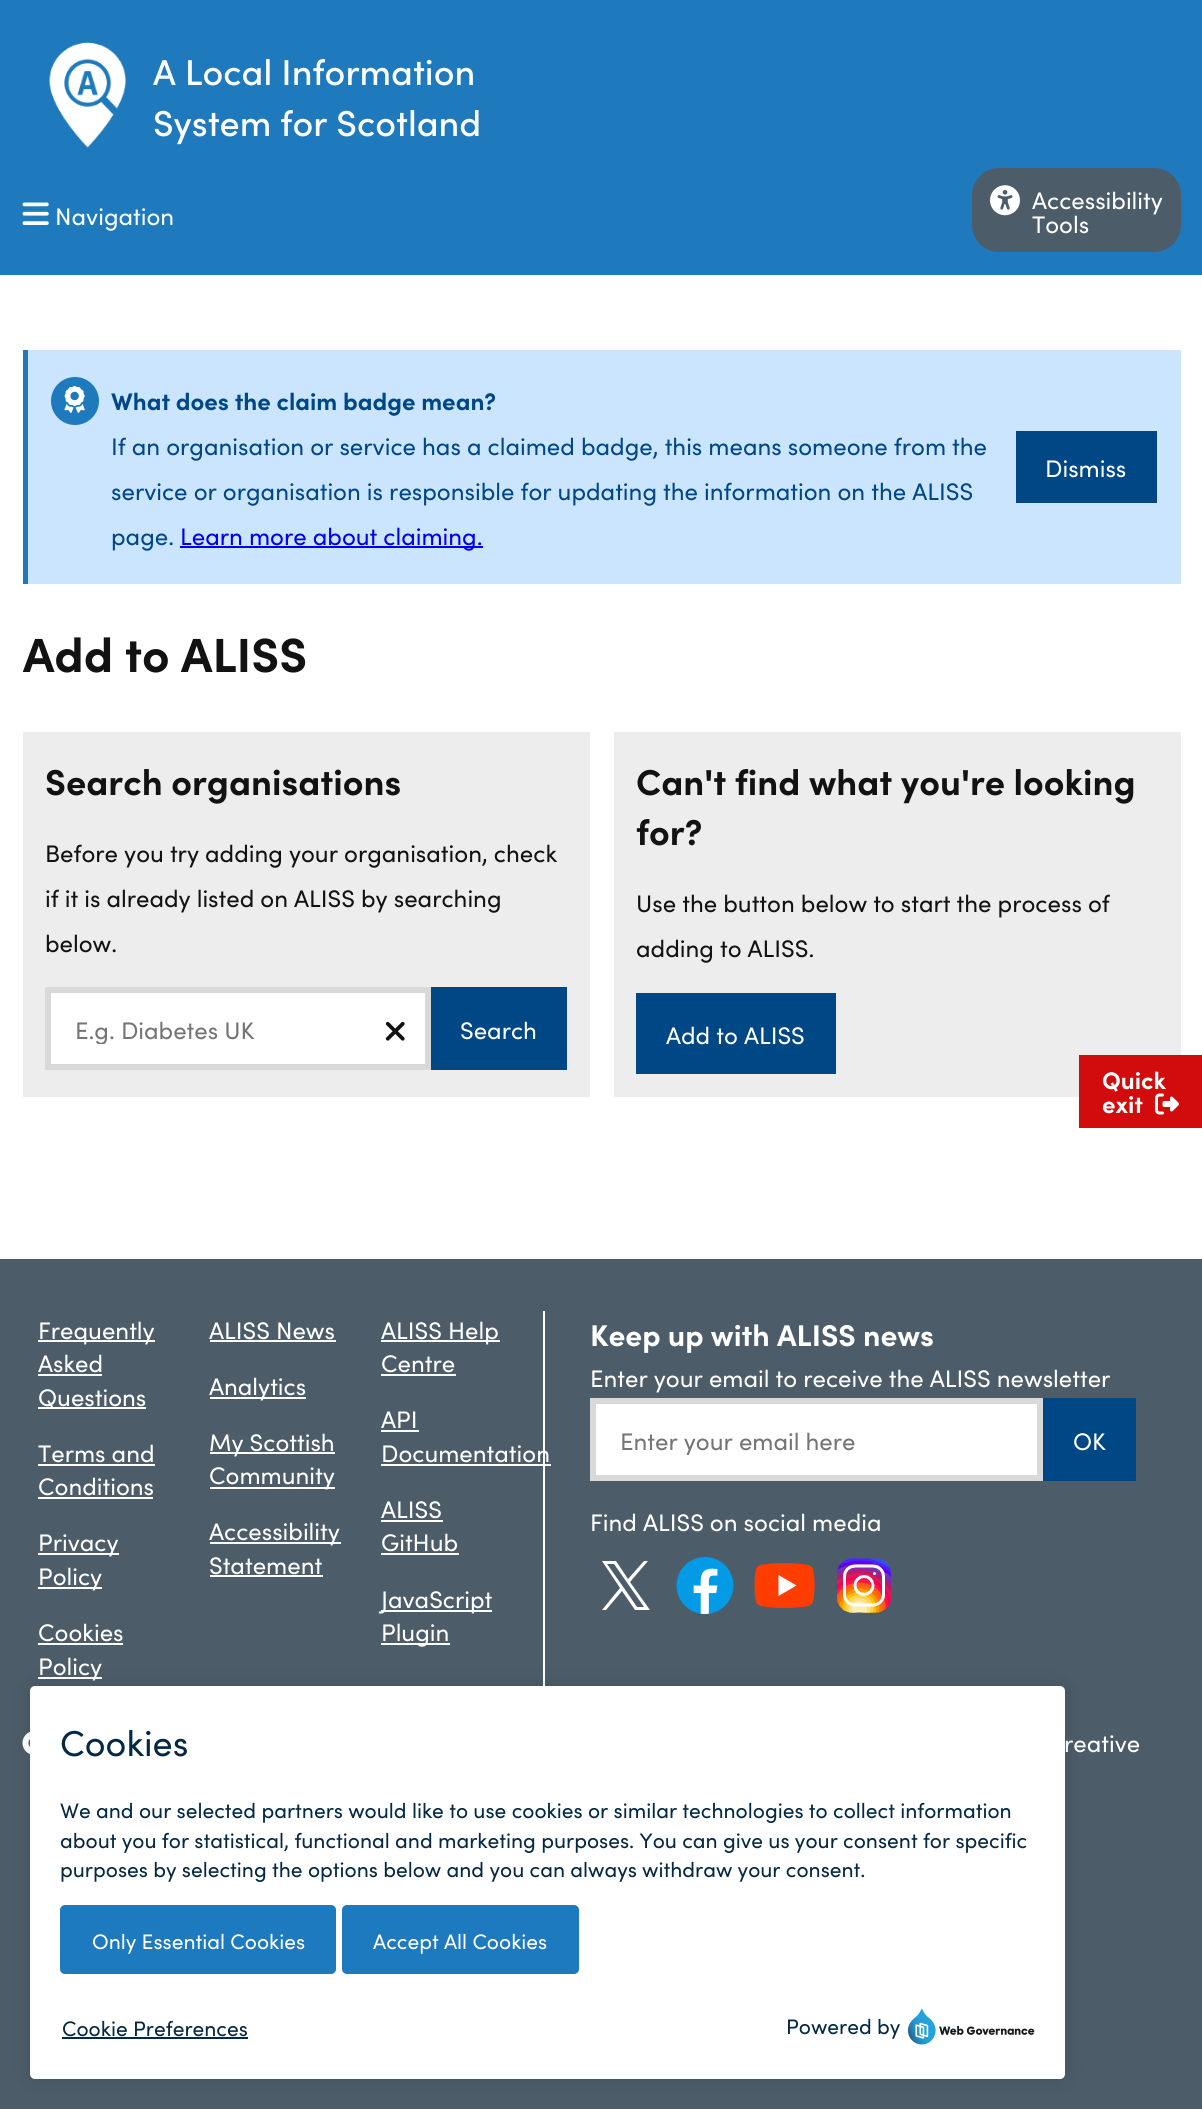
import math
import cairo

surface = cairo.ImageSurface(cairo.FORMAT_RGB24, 1202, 2109)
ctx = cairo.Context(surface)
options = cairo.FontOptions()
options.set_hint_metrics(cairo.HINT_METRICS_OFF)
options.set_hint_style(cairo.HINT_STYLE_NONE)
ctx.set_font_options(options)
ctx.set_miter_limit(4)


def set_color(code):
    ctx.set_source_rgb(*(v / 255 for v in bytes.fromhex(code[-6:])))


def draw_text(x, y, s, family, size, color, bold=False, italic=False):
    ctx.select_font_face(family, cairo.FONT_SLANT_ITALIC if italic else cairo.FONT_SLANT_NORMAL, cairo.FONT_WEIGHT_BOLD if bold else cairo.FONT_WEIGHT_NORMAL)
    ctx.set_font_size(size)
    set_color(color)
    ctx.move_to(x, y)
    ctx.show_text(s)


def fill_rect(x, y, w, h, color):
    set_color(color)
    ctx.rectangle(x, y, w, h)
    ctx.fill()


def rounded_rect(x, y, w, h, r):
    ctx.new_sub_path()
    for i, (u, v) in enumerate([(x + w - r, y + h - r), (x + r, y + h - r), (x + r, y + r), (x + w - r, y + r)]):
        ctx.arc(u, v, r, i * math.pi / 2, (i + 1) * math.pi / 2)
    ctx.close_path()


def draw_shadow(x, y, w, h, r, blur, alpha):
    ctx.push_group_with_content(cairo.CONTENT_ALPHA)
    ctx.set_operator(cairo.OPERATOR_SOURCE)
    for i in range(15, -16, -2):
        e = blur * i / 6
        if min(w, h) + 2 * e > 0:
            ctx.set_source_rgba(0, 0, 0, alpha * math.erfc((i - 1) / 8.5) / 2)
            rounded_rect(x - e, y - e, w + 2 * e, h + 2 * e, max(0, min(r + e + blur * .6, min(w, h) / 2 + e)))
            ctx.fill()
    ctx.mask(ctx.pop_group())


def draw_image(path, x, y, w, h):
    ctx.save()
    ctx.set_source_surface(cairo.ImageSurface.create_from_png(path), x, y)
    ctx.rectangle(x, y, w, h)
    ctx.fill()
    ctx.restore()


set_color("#4c5c68")
ctx.paint()
fill_rect(0, 275, 1202, 984, "#ffffff")
fill_rect(0, 0, 1202, 275, "#1e7abd")
draw_image("assets/img1.png", 49, 42, 77, 106)
draw_text(153, 85, "A Local Information", "Sofia Medium", 36, "#ffffff")
draw_text(153, 136, "System for Scotland", "Sofia Medium", 36, "#ffffff")
draw_image("assets/img2.png", 22, 202, 27, 23)
draw_text(55, 225, "Navigation", "Sofia", 24, "#ffffff")
set_color("#4c5c68")
rounded_rect(972, 168, 209, 84, 27)
ctx.fill()
draw_image("assets/img3.png", 990, 185, 30, 31)
draw_text(1032, 209, "Accessibility", "Sofia", 24, "#ffffff")
draw_text(1032, 233, "Tools", "Sofia", 24, "#ffffff")
fill_rect(28, 350, 1153, 234, "#cce5ff")
fill_rect(23, 350, 5, 234, "#1e7abd")
ctx.new_path()
ctx.arc(75, 401, 24, 0, 2 * math.pi)
ctx.fill()
draw_image("assets/img4.png", 64, 385, 21, 28)
draw_text(111, 410, "What does the claim badge mean?", "Sofia", 24, "#004785", bold=True)
draw_text(111, 455, "If an organisation or service has a claimed badge, this means someone from the", "Sofia", 24, "#004785")
draw_text(111, 500, "service or organisation is responsible for updating the information on the ALISS", "Sofia", 24, "#004785")
draw_text(111, 545, "page.", "Sofia", 24, "#004785")
fill_rect(180, 546, 303, 2, "#0000ee")
draw_text(180, 545, "Learn more about claiming.", "Sofia", 24, "#0000ee")
fill_rect(1016, 431, 141, 72, "#004785")
draw_text(1045, 477, "Dismiss", "Sofia", 24, "#ffffff")
draw_text(23, 672, "Add to ALISS", "Sofia", 48, "#121212", bold=True)
fill_rect(23, 732, 567, 365, "#ededed")
draw_text(45, 795, "Search organisations", "Sofia", 36, "#121212", bold=True)
draw_text(45, 862, "Before you try adding your organisation, check", "Sofia", 24, "#121212")
draw_text(45, 907, "if it is already listed on ALISS by searching", "Sofia", 24, "#121212")
draw_text(45, 952, "below.", "Sofia", 24, "#121212")
set_color("#ffffff")
ctx.rectangle(48, 990, 380, 77)
ctx.fill_preserve()
set_color("#d9d9d9")
ctx.set_line_width(6)
ctx.stroke()
ctx.save()
ctx.rectangle(75, 1011, 326, 33)
ctx.clip()
draw_text(75, 1039, "E.g. Diabetes UK", "Sofia", 24, "#757575")
ctx.restore()
draw_image("assets/img5.png", 385, 1021, 20, 20)
fill_rect(431, 987, 136, 83, "#004785")
draw_text(460, 1039, "Search", "Sofia", 24, "#ffffff")
fill_rect(614, 732, 567, 365, "#ededed")
draw_text(636, 795, "Can't find what you're looking", "Sofia", 36, "#121212", bold=True)
draw_text(636, 845, "for?", "Sofia", 36, "#121212", bold=True)
draw_text(636, 912, "Use the button below to start the process of", "Sofia", 24, "#121212")
draw_text(636, 957, "adding to ALISS.", "Sofia", 24, "#121212")
fill_rect(636, 993, 200, 81, "#004785")
draw_text(666, 1044, "Add to ALISS", "Sofia", 24, "#ffffff")
fill_rect(1079, 1055, 123, 73, "#d20c0c")
draw_text(1102, 1089, "Quick", "Sofia", 24, "#ffffff", bold=True)
draw_text(1102, 1113, "exit", "Sofia", 24, "#ffffff", bold=True)
draw_image("assets/img6.png", 1155, 1093, 24, 22)
fill_rect(38, 1340, 117, 2, "#ffffff")
draw_text(38, 1339, "Frequently", "Sofia", 24, "#ffffff")
draw_text(38, 1372, "Asked", "Sofia", 24, "#ffffff")
fill_rect(38, 1374, 64, 2, "#ffffff")
fill_rect(38, 1407, 108, 2, "#ffffff")
draw_text(38, 1406, "Questions", "Sofia", 24, "#ffffff")
draw_text(38, 1462, "Terms and", "Sofia", 24, "#ffffff")
fill_rect(38, 1464, 117, 2, "#ffffff")
draw_text(38, 1495, "Conditions", "Sofia", 24, "#ffffff")
fill_rect(38, 1497, 115, 2, "#ffffff")
fill_rect(38, 1553, 81, 2, "#ffffff")
draw_text(38, 1551, "Privacy", "Sofia", 24, "#ffffff")
fill_rect(38, 1587, 64, 2, "#ffffff")
draw_text(38, 1585, "Policy", "Sofia", 24, "#ffffff")
draw_text(38, 1641, "Cookies", "Sofia", 24, "#ffffff")
fill_rect(38, 1643, 85, 2, "#ffffff")
fill_rect(38, 1677, 64, 2, "#ffffff")
draw_text(38, 1675, "Policy", "Sofia", 24, "#ffffff")
draw_text(209, 1339, "ALISS News", "Sofia", 24, "#ffffff")
fill_rect(210, 1340, 126, 2, "#ffffff")
fill_rect(210, 1397, 96, 2, "#ffffff")
draw_text(209, 1395, "Analytics", "Sofia", 24, "#ffffff")
fill_rect(210, 1452, 125, 2, "#ffffff")
draw_text(209, 1451, "My Scottish", "Sofia", 24, "#ffffff")
fill_rect(210, 1487, 125, 2, "#ffffff")
draw_text(209, 1484, "Community", "Sofia", 24, "#ffffff")
fill_rect(210, 1542, 131, 2, "#ffffff")
draw_text(209, 1540, "Accessibility", "Sofia", 24, "#ffffff")
draw_text(209, 1574, "Statement", "Sofia", 24, "#ffffff")
fill_rect(210, 1575, 113, 2, "#ffffff")
fill_rect(381, 1340, 119, 2, "#ffffff")
draw_text(381, 1339, "ALISS Help", "Sofia", 24, "#ffffff")
draw_text(381, 1372, "Centre", "Sofia", 24, "#ffffff")
fill_rect(381, 1374, 75, 2, "#ffffff")
draw_text(381, 1428, "API", "Sofia", 24, "#ffffff")
fill_rect(381, 1430, 38, 2, "#ffffff")
fill_rect(543, 1311, 2, 375, "#ffffff")
draw_text(381, 1462, "Documentation", "Sofia", 24, "#ffffff")
fill_rect(381, 1464, 170, 2, "#ffffff")
draw_text(381, 1518, "ALISS", "Sofia", 24, "#ffffff")
fill_rect(381, 1520, 62, 2, "#ffffff")
draw_text(381, 1551, "GitHub", "Sofia", 24, "#ffffff")
fill_rect(381, 1553, 78, 2, "#ffffff")
fill_rect(381, 1610, 111, 2, "#ffffff")
draw_text(381, 1608, "JavaScript", "Sofia", 24, "#ffffff")
fill_rect(381, 1643, 69, 2, "#ffffff")
draw_text(381, 1641, "Plugin", "Sofia", 24, "#ffffff")
draw_text(590, 1346, "Keep up with ALISS news", "Sofia", 30, "#ffffff", bold=True)
draw_text(590, 1387, "Enter your email to receive the ALISS newsletter", "Sofia", 24, "#ffffff")
ctx.rectangle(593, 1401, 447, 77)
ctx.fill_preserve()
set_color("#d9d9d9")
ctx.stroke()
ctx.save()
ctx.rectangle(620, 1422, 393, 33)
ctx.clip()
draw_text(620, 1450, "Enter your email here", "Sofia", 24, "#757575")
ctx.restore()
fill_rect(1043, 1398, 93, 83, "#004785")
draw_text(1073, 1450, "OK", "Sofia", 24, "#ffffff")
draw_text(590, 1531, "Find ALISS on social media", "Sofia", 24, "#ffffff")
ctx.new_path()
ctx.move_to(630, 1582)
ctx.line_to(648, 1561)
ctx.line_to(644, 1561)
ctx.line_to(628, 1579)
ctx.line_to(616, 1561)
ctx.line_to(602, 1561)
ctx.line_to(620, 1588)
ctx.line_to(602, 1610)
ctx.line_to(606, 1610)
ctx.line_to(622, 1591)
ctx.line_to(635, 1610)
ctx.line_to(650, 1610)
ctx.close_path()
ctx.move_to(624, 1588)
ctx.line_to(607, 1564)
ctx.line_to(614, 1564)
ctx.line_to(644, 1607)
ctx.line_to(637, 1607)
ctx.close_path()
ctx.fill()
draw_image("assets/img7.png", 676, 1557, 58, 57)
draw_image("assets/img8.png", 754, 1563, 61, 45)
draw_image("assets/img9.png", 837, 1558, 54, 55)
draw_image("assets/img10.png", 22, 1732, 8, 22)
draw_text(1064, 1752, "reative", "Sofia", 24, "#ffffff")
set_color("#000000")
draw_shadow(30, 1686, 1035, 393, 5, 11, 0.1)
set_color("#ffffff")
rounded_rect(30, 1686, 1035, 393, 5)
ctx.fill()
draw_text(60, 1756, "Cookies", "Sofia", 36, "#052942")
draw_text(60, 1818, "We and our selected partners would like to use cookies or similar technologies to collect information", "Sofia", 21, "#052942")
draw_text(60, 1848, "about you for statistical, functional and marketing purposes. You can give us your consent for specific", "Sofia", 21, "#052942")
draw_text(60, 1877, "purposes by selecting the options below and you can always withdraw your consent.", "Sofia", 21, "#052942")
set_color("#1e7abe")
rounded_rect(60, 1905, 276, 69, 5)
ctx.fill()
draw_text(92, 1949, "Only Essential Cookies", "Sofia", 21, "#ffffff")
set_color("#1e7abe")
rounded_rect(342, 1905, 237, 69, 5)
ctx.fill()
draw_text(373, 1949, "Accept All Cookies", "Sofia", 21, "#ffffff")
draw_text(62, 2036, "Cookie Preferences", "Sofia", 21, "#052942")
fill_rect(62, 2037, 186, 2, "#052942")
draw_text(786, 2034, "Powered by", "Sofia", 21, "#052942")
draw_image("assets/img11.png", 908, 2008, 127, 37)
surface.write_to_png("output.png")
